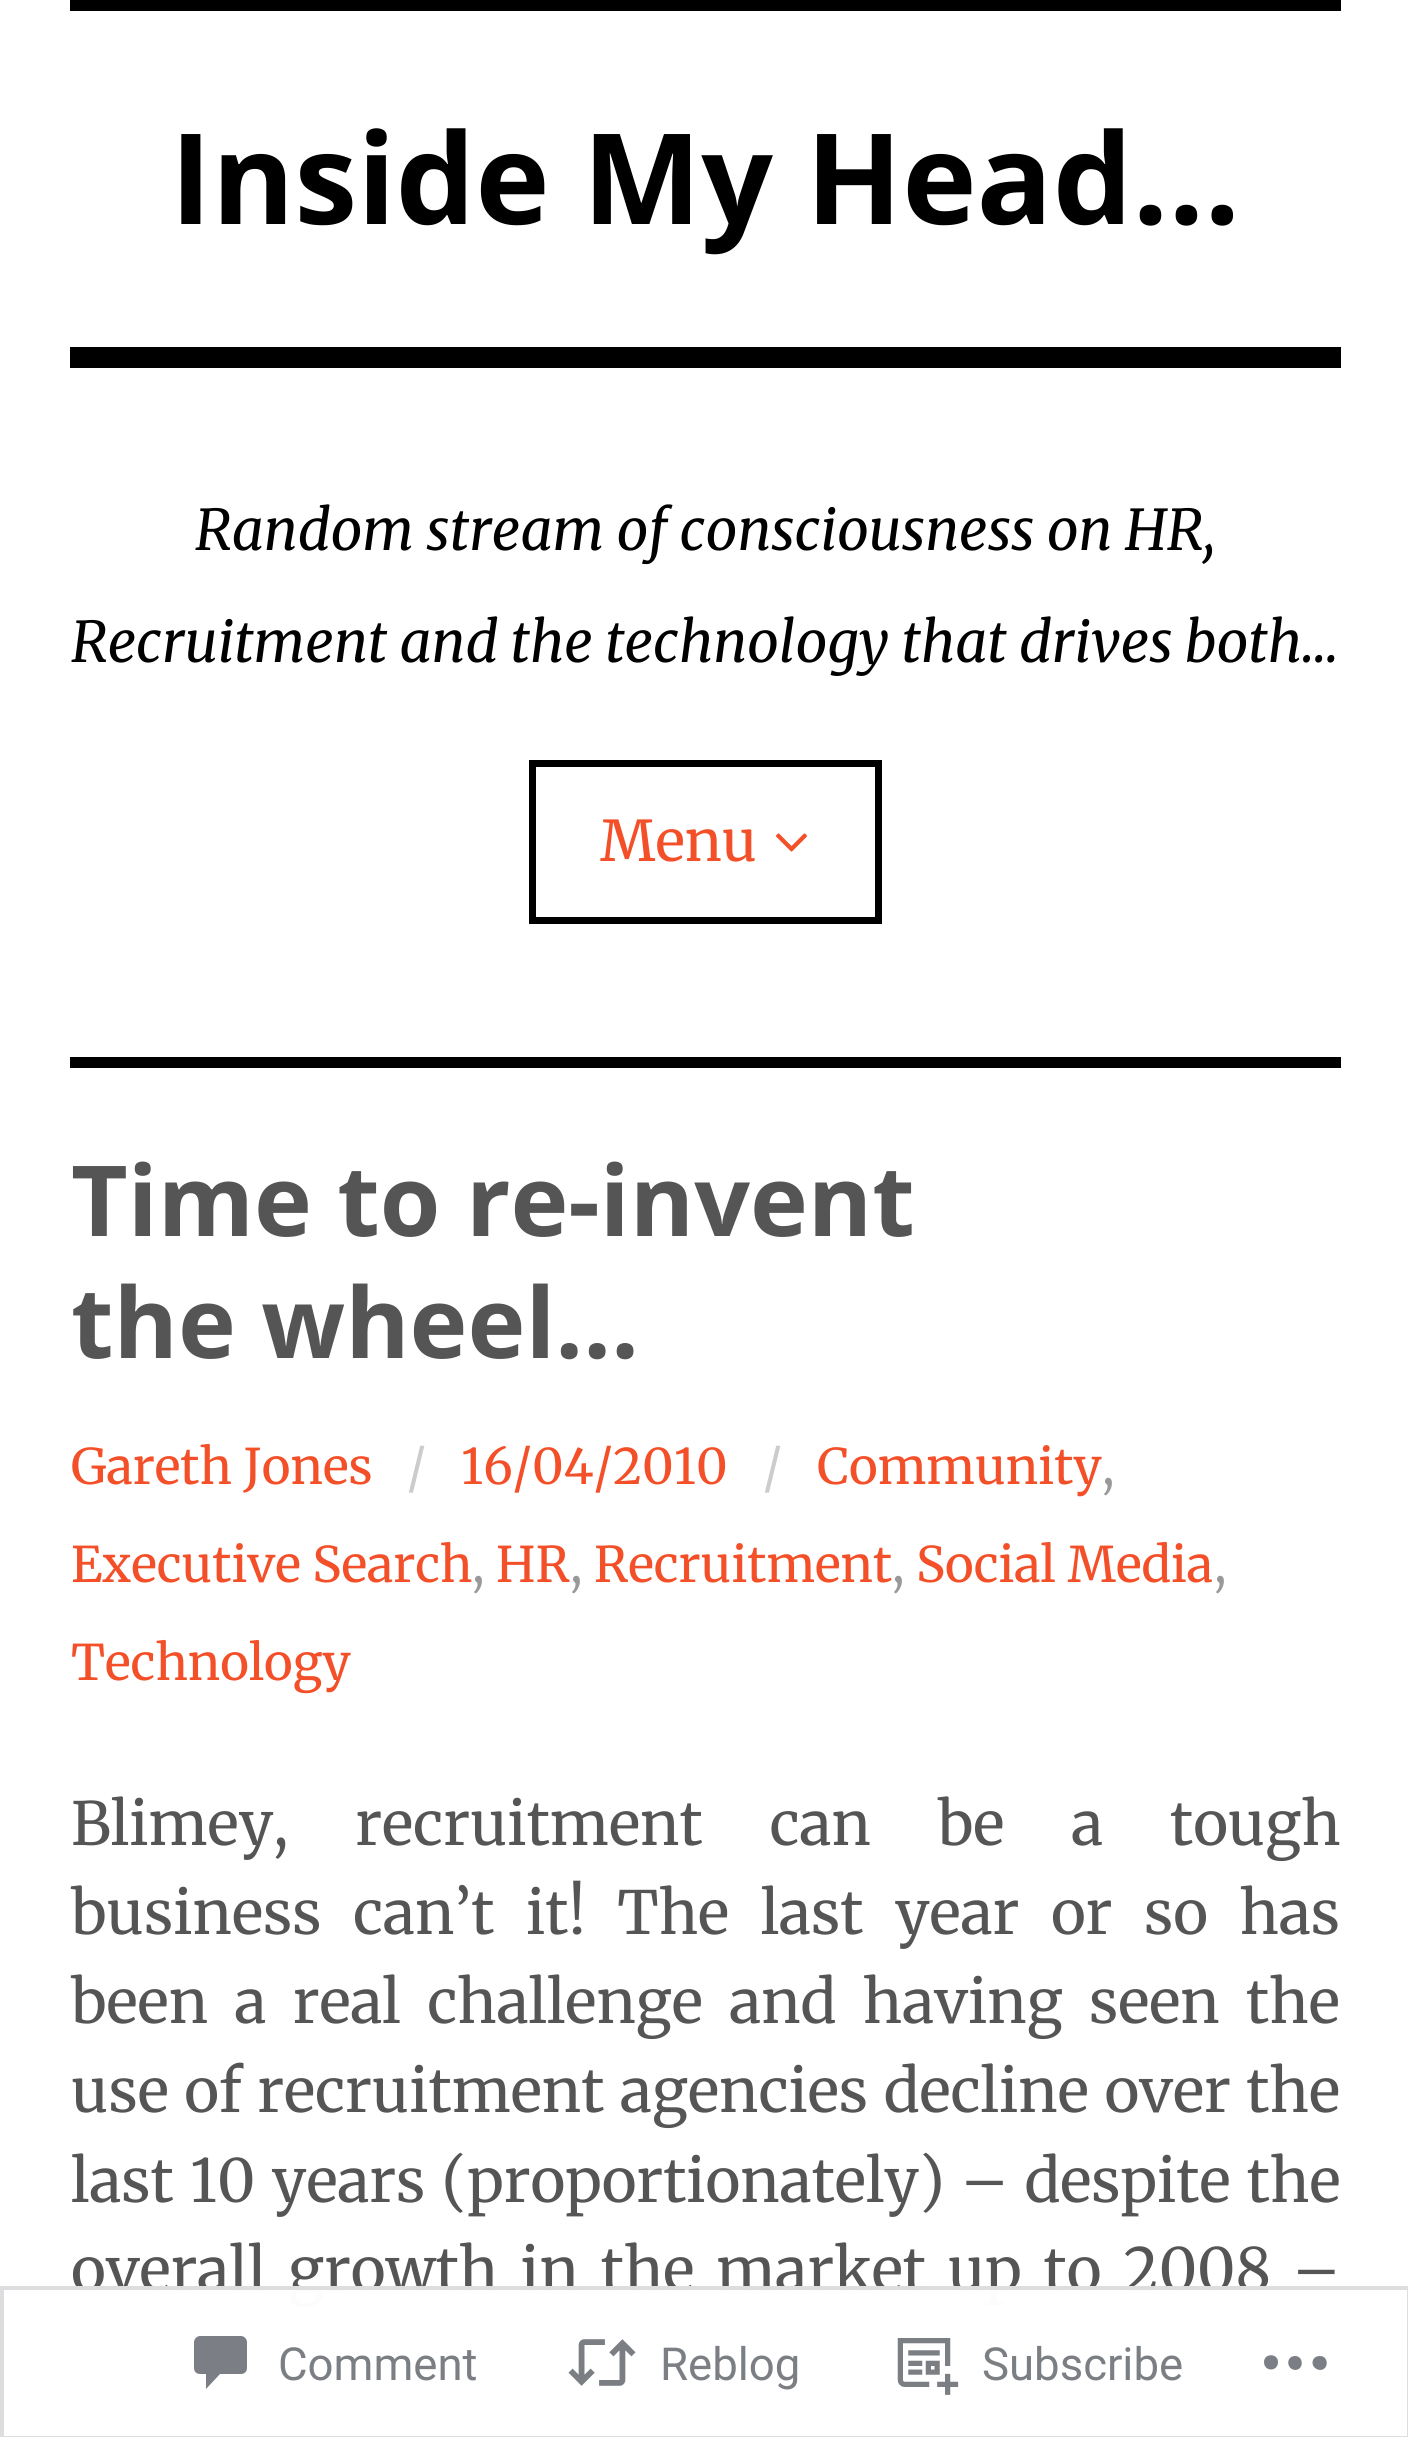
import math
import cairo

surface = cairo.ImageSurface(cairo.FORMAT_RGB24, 1408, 2437)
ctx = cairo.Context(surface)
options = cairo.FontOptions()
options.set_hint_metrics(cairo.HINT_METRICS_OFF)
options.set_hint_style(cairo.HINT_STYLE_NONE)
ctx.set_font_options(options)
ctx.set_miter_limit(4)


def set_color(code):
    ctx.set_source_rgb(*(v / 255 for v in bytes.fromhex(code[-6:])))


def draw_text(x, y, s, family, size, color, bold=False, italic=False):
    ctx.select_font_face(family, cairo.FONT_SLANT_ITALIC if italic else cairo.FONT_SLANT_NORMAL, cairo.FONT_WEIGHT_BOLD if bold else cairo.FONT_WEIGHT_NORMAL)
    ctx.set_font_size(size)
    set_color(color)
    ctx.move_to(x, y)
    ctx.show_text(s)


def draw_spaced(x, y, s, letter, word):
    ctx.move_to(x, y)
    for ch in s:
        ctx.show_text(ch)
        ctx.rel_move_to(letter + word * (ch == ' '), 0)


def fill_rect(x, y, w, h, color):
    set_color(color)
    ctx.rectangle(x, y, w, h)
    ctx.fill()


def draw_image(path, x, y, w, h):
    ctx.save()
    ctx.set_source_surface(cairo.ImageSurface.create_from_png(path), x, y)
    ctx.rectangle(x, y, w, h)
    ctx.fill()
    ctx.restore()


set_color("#ffffff")
ctx.paint()
fill_rect(70, 0, 1271, 11, "#000000")
fill_rect(70, 347, 1271, 21, "#000000")
draw_text(170, 224, "Inside My Head…", "Open Sans", 126, "#000000", bold=True)
draw_text(195, 550, "Random stream of consciousness on HR,", "Merriweather", 56, "#000000", italic=True)
draw_text(71, 662, "Recruitment and the technology that drives both…", "Merriweather", 56, "#000000", italic=True)
ctx.rectangle(532.5, 763.5, 346, 157)
ctx.set_line_width(7)
ctx.stroke()
draw_text(600, 861, "Menu", "Merriweather", 56, "#f35029")
draw_image("assets/img1.png", 776, 833, 31, 19)
fill_rect(70, 1057, 1271, 11, "#000000")
draw_text(71, 1236, "Time to re-invent", "Open Sans", 98, "#555555", bold=True)
draw_text(71, 1358, "the wheel…", "Open Sans", 98, "#555555", bold=True)
draw_text(71, 1484, "Gareth Jones", "Merriweather", 49, "#f35029")
draw_text(407, 1484, "/", "Merriweather", 49, "#cccccc")
draw_text(817, 1484, "Community", "Merriweather", 49, "#f35029")
draw_text(1102, 1484, ",", "Merriweather", 49, "#999999")
draw_text(71, 1582, "Executive Search", "Merriweather", 49, "#f35029")
draw_text(496, 1582, "HR", "Merriweather", 49, "#f35029")
draw_text(594, 1582, "Recruitment", "Merriweather", 49, "#f35029")
draw_text(916, 1582, "Social Media", "Merriweather", 49, "#f35029")
draw_text(472, 1582, ",", "Merriweather", 49, "#999999")
draw_text(570, 1582, ",", "Merriweather", 49, "#999999")
draw_text(892, 1582, ",", "Merriweather", 49, "#999999")
draw_text(1214, 1582, ",", "Merriweather", 49, "#999999")
draw_text(71, 1680, "Technology", "Merriweather", 49, "#f35029")
draw_text(461, 1484, "16/04/2010", "Merriweather", 49, "#f35029")
draw_text(763, 1484, "/", "Merriweather", 49, "#cccccc")
ctx.set_font_size(59.5)
set_color("#555555")
draw_spaced(71, 1845, "Blimey, recruitment can be a tough", 0, 52.75)
draw_spaced(71, 1934, "business can’t it! The last year or so has", 0, 17.5)
draw_spaced(71, 2023, "been a real challenge and having seen the", 0, 12.25)
draw_spaced(71, 2112, "use of recruitment agencies decline over the", 0, 1.5)
draw_spaced(71, 2202, "last 10 years (proportionately) – despite the", 0, 2.25)
draw_spaced(71, 2291, "overall growth in the market up to 2008 –", 0, 7.75)
ctx.set_source_rgba(1, 1, 1, 0.98)
ctx.rectangle(75, 2286, 1191, 22)
ctx.fill()
ctx.rectangle(2, 2288, 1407, 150)
ctx.set_source_rgba(0.863, 0.863, 0.871, 0.98)
ctx.set_line_width(4)
ctx.stroke()
ctx.set_source_rgba(0.471, 0.486, 0.51, 0.98)
ctx.new_path()
ctx.move_to(220, 2374)
ctx.line_to(206, 2389)
ctx.line_to(206, 2374)
ctx.line_to(200, 2374)
ctx.curve_to(197, 2374, 194, 2372, 194, 2368)
ctx.line_to(194, 2342)
ctx.curve_to(194, 2339, 197, 2336, 200, 2336)
ctx.line_to(241, 2336)
ctx.curve_to(244, 2336, 247, 2339, 247, 2342)
ctx.line_to(247, 2368)
ctx.curve_to(247, 2372, 244, 2374, 241, 2374)
ctx.close_path()
ctx.fill()
draw_text(278, 2380, "Comment", "Roboto", 45.5, "#7b7f84")
draw_image("assets/img2.png", 568, 2339, 68, 47)
draw_text(660, 2380, "Reblog", "Roboto", 45.5, "#7b7f84")
draw_image("assets/img3.png", 897, 2338, 62, 57)
draw_text(982, 2380, "Subscribe", "Roboto", 45.5, "#7b7f84")
ctx.set_source_rgba(0.471, 0.486, 0.51, 0.98)
ctx.new_path()
ctx.move_to(1278, 2362)
ctx.curve_to(1278, 2372, 1264, 2372, 1264, 2362)
ctx.curve_to(1264, 2353, 1278, 2353, 1278, 2362)
ctx.close_path()
ctx.move_to(1320, 2356)
ctx.curve_to(1310, 2356, 1310, 2369, 1320, 2370)
ctx.curve_to(1329, 2370, 1329, 2356, 1320, 2356)
ctx.close_path()
ctx.move_to(1295, 2356)
ctx.curve_to(1286, 2356, 1286, 2369, 1295, 2370)
ctx.curve_to(1304, 2370, 1304, 2356, 1295, 2356)
ctx.close_path()
ctx.fill()
surface.write_to_png("output.png")
